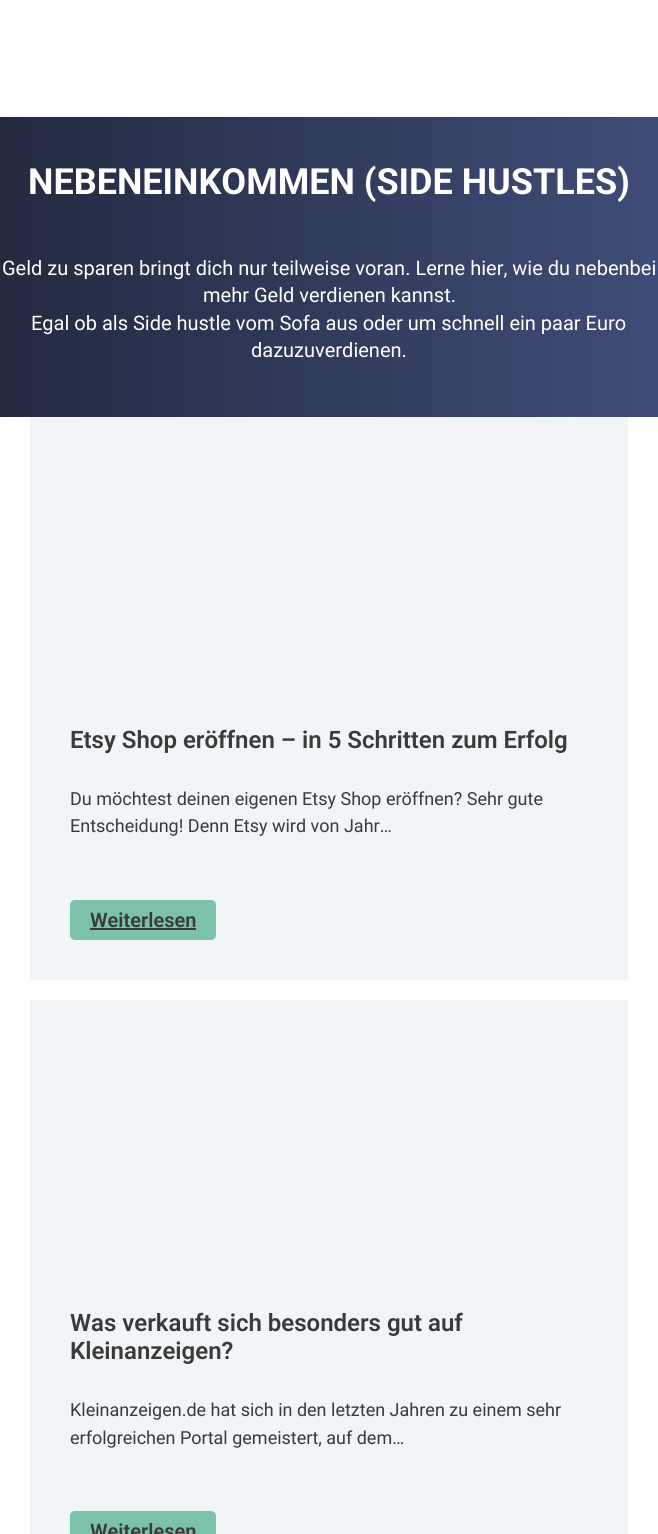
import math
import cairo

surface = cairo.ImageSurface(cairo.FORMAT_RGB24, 658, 1534)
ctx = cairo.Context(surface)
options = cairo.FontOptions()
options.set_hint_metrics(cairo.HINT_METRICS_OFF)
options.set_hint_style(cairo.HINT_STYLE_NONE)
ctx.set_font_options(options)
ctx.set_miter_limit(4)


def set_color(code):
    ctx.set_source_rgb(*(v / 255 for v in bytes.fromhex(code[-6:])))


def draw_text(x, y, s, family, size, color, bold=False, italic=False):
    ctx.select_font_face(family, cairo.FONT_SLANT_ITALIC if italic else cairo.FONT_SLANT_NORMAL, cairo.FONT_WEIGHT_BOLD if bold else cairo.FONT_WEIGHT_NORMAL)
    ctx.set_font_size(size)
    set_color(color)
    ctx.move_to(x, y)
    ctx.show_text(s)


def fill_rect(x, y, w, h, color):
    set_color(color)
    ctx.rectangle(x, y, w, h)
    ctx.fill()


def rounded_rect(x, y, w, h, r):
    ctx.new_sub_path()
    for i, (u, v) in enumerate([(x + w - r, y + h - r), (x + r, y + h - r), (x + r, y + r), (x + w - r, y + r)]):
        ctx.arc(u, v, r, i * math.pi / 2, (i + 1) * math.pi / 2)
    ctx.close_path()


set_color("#ffffff")
ctx.paint()
gradient = cairo.LinearGradient(0, 267, 658, 267)
gradient.add_color_stop_rgba(0, 0.137, 0.165, 0.251, 1)
gradient.add_color_stop_rgba(1, 0.247, 0.298, 0.467, 1)
ctx.set_source(gradient)
ctx.rectangle(0, 117, 658, 300)
ctx.fill()
draw_text(28, 194, "NEBENEINKOMMEN (SIDE HUSTLES)", "Roboto", 36, "#ffffff", bold=True)
draw_text(2, 275, "Geld zu sparen bringt dich nur teilweise voran. Lerne hier, wie du nebenbei", "Roboto", 20, "#ffffff")
draw_text(203, 302, "mehr Geld verdienen kannst.", "Roboto", 20, "#ffffff")
draw_text(31, 330, "Egal ob als Side hustle vom Sofa aus oder um schnell ein paar Euro", "Roboto", 20, "#ffffff")
draw_text(251, 357, "dazuzuverdienen.", "Roboto", 20, "#ffffff")
fill_rect(30, 417, 598, 563, "#f2f5f7")
draw_text(70, 748, "Etsy Shop eröffnen – in 5 Schritten zum Erfolg", "Roboto SemiBold", 24, "#3a3a3a")
draw_text(70, 805, "Du möchtest deinen eigenen Etsy Shop eröffnen? Sehr gute", "Roboto", 18, "#3a3a3a")
draw_text(70, 832, "Entscheidung! Denn Etsy wird von Jahr…", "Roboto", 18, "#3a3a3a")
set_color("#7cc1aa")
rounded_rect(70, 900, 146, 40, 5)
ctx.fill()
draw_text(90, 927, "Weiterlesen", "Roboto SemiBold", 20, "#3a3a3a")
fill_rect(90, 928, 106, 2, "#3a3a3a")
fill_rect(30, 1000, 598, 534, "#f2f5f7")
draw_text(70, 1331, "Was verkauft sich besonders gut auf", "Roboto SemiBold", 24, "#3a3a3a")
draw_text(70, 1359, "Kleinanzeigen?", "Roboto SemiBold", 24, "#3a3a3a")
draw_text(70, 1416, "Kleinanzeigen.de hat sich in den letzten Jahren zu einem sehr", "Roboto", 18, "#3a3a3a")
draw_text(70, 1444, "erfolgreichen Portal gemeistert, auf dem…", "Roboto", 18, "#3a3a3a")
set_color("#7cc1aa")
rounded_rect(70, 1511, 146, 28, 5)
ctx.fill()
draw_text(90, 1538, "Weiterlesen", "Roboto SemiBold", 20, "#3a3a3a")
surface.write_to_png("output.png")
